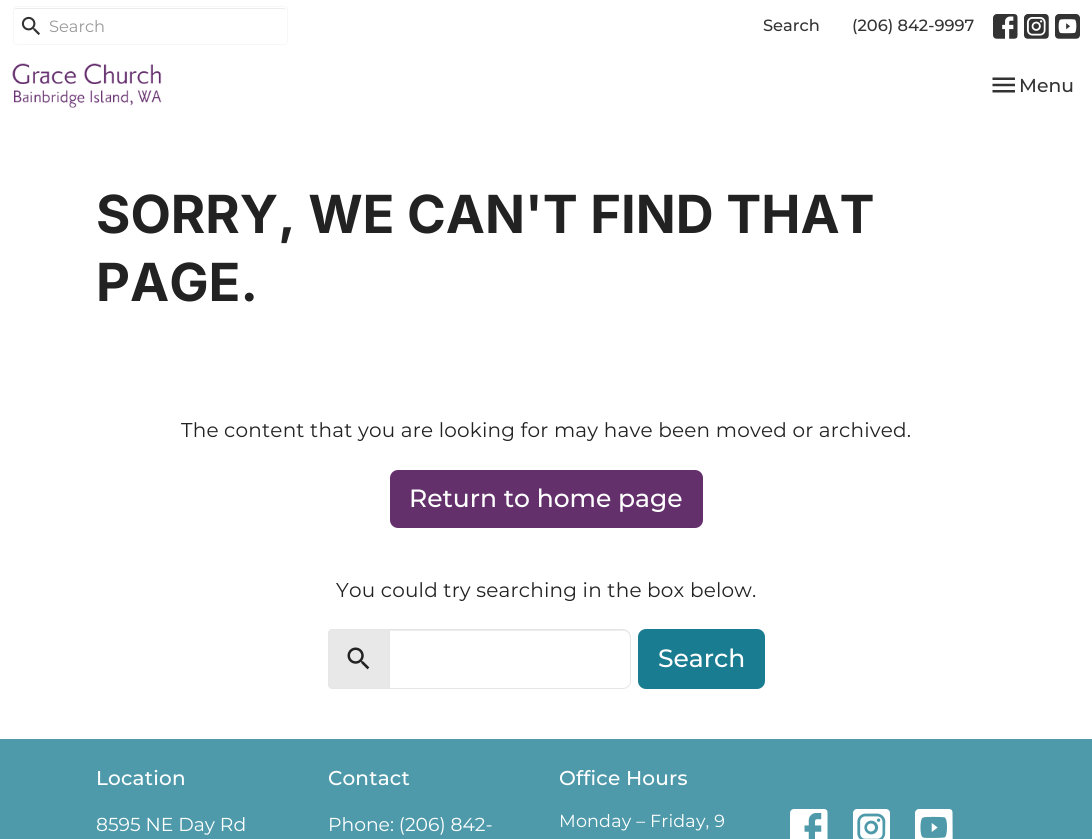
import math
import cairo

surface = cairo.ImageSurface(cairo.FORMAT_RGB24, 1092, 839)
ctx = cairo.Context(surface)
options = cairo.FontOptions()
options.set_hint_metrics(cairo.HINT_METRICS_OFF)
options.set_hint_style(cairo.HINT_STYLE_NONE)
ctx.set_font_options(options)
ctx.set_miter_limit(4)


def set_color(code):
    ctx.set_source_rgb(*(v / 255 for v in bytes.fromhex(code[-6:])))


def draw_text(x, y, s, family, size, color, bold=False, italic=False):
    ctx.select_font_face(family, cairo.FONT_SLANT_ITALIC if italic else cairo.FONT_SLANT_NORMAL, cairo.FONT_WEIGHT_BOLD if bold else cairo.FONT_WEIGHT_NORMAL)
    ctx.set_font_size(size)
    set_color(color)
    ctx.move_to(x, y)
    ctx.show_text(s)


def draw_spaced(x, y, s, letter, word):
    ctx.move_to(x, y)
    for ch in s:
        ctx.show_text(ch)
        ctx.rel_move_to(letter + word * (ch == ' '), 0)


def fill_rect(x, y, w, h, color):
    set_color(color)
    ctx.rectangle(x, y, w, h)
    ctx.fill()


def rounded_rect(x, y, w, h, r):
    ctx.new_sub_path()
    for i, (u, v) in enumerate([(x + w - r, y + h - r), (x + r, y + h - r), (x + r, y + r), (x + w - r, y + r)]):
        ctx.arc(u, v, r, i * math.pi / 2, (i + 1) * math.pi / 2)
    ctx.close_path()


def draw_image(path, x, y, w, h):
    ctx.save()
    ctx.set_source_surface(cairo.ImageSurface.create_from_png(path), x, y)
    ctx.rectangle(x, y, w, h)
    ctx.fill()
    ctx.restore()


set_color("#ffffff")
ctx.paint()
set_color("#ececec")
ctx.new_path()
ctx.move_to(16, 9)
ctx.line_to(284, 9)
ctx.curve_to(285, 9, 286, 10, 286, 11)
ctx.curve_to(286, 9, 285, 8, 284, 8)
ctx.line_to(16, 8)
ctx.curve_to(15, 8, 14, 9, 14, 11)
ctx.curve_to(14, 10, 15, 9, 16, 9)
ctx.close_path()
ctx.fill()
rounded_rect(13.5, 6.5, 274, 38, 3.5)
set_color("#f7f7f7")
ctx.set_line_width(1)
ctx.stroke()
draw_image("assets/img1.png", 21, 16, 19, 19)
draw_text(49, 32, "Search", "Montserrat", 16.25, "#999999")
draw_text(763, 31, "Search", "Montserrat Medium", 16.25, "#333333")
draw_text(852, 31, "(206) 842-9997", "Montserrat Medium", 16.25, "#333333")
draw_image("assets/img2.png", 993, 14, 25, 25)
draw_image("assets/img3.png", 1024, 14, 25, 25)
draw_image("assets/img4.png", 1055, 14, 25, 25)
draw_image("assets/img5.png", 12, 63, 150, 45)
draw_image("assets/img6.png", 992, 77, 23, 16)
draw_text(1019, 92, "Menu", "Montserrat Medium", 18.75, "#333333")
draw_text(96, 233, "SORRY, WE CAN'T FIND THAT", "Inter", 52.5, "#222222", bold=True)
draw_text(96, 301, "PAGE.", "Inter", 52.5, "#222222", bold=True)
ctx.select_font_face("Montserrat")
ctx.set_font_size(20)
draw_spaced(181, 437, "The content that you are looking for may have been moved or archived.", 0.2, 0)
set_color("#63306c")
rounded_rect(390, 470, 313, 58, 8)
ctx.fill()
draw_text(409, 507, "Return to home page", "Montserrat Medium", 25, "#ffffff")
ctx.select_font_face("Montserrat")
ctx.set_font_size(20)
set_color("#222222")
draw_spaced(336, 597, "You could try searching in the box below.", 0.2, 0)
set_color("#e8e8e8")
ctx.new_path()
ctx.move_to(333, 629)
ctx.line_to(389, 629)
ctx.line_to(389, 689)
ctx.line_to(333, 689)
ctx.curve_to(330, 689, 328, 687, 328, 684)
ctx.line_to(328, 634)
ctx.curve_to(328, 631, 330, 629, 333, 629)
ctx.close_path()
ctx.fill()
set_color("#e6e6e6")
ctx.set_fill_rule(cairo.FILL_RULE_EVEN_ODD)
ctx.new_path()
ctx.move_to(332, 629)
ctx.line_to(389, 629)
ctx.line_to(389, 689)
ctx.line_to(332, 689)
ctx.curve_to(330, 689, 328, 687, 328, 684)
ctx.line_to(328, 634)
ctx.curve_to(328, 631, 330, 629, 332, 629)
ctx.close_path()
ctx.move_to(332, 630)
ctx.line_to(389, 630)
ctx.line_to(389, 688)
ctx.line_to(332, 688)
ctx.curve_to(330, 688, 329, 686, 329, 684)
ctx.line_to(329, 634)
ctx.curve_to(329, 632, 330, 630, 332, 630)
ctx.close_path()
ctx.fill()
draw_image("assets/img7.png", 347, 647, 23, 23)
set_color("#ececec")
ctx.set_fill_rule(cairo.FILL_RULE_WINDING)
ctx.new_path()
ctx.move_to(390, 631)
ctx.line_to(624, 631)
ctx.curve_to(627, 631, 630, 634, 630, 638)
ctx.line_to(630, 636)
ctx.curve_to(630, 633, 627, 630, 624, 630)
ctx.line_to(390, 630)
ctx.close_path()
ctx.fill()
ctx.new_path()
ctx.move_to(389.5, 629.5)
ctx.line_to(623, 629.5)
ctx.curve_to(627, 629.5, 630.5, 633, 630.5, 637)
ctx.line_to(630.5, 681)
ctx.curve_to(630.5, 685, 627, 688.5, 623, 688.5)
ctx.line_to(389.5, 688.5)
ctx.close_path()
set_color("#e6e6e6")
ctx.stroke()
set_color("#197c91")
rounded_rect(638, 629, 127, 60, 8)
ctx.fill()
draw_text(658, 667, "Search", "Montserrat Medium", 25, "#ffffff")
fill_rect(0, 739, 1092, 100, "#4e9aaa")
ctx.set_font_size(20)
set_color("#ffffff")
draw_spaced(96, 785, "Location", 0.2, 0)
draw_text(96, 831, "8595 NE Day Rd", "Montserrat", 18.75, "#ffffff")
ctx.select_font_face("Montserrat Medium")
ctx.set_font_size(20)
draw_spaced(328, 785, "Contact", 0.2, 0)
draw_text(328, 831, "Phone: (206) 842-", "Montserrat", 18.75, "#ffffff")
ctx.select_font_face("Montserrat Medium")
ctx.set_font_size(20)
draw_spaced(559, 785, "Office Hours", 0.2, 0)
ctx.select_font_face("Montserrat")
ctx.set_font_size(17.5)
draw_spaced(559, 827, "Monday – Friday, 9", 0.2, 0)
draw_image("assets/img8.png", 790, 809, 38, 30)
draw_image("assets/img9.png", 853, 809, 37, 30)
draw_image("assets/img10.png", 915, 809, 38, 30)
surface.write_to_png("output.png")
